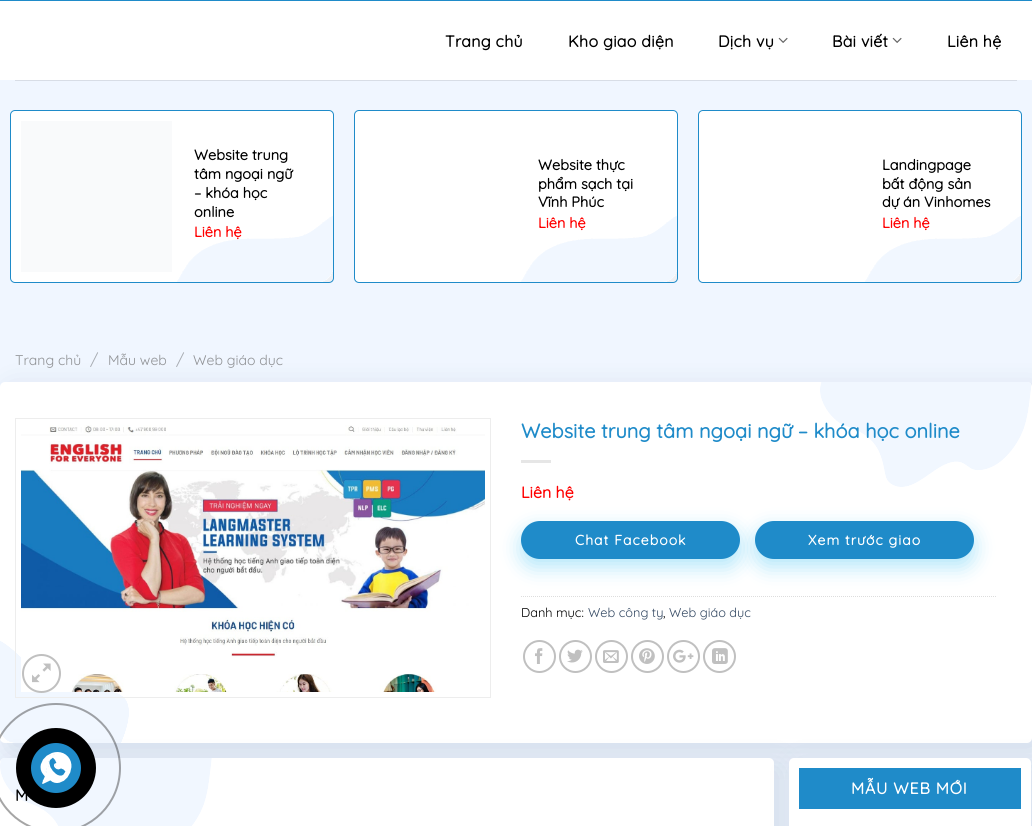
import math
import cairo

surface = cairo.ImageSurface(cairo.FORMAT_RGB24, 1032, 826)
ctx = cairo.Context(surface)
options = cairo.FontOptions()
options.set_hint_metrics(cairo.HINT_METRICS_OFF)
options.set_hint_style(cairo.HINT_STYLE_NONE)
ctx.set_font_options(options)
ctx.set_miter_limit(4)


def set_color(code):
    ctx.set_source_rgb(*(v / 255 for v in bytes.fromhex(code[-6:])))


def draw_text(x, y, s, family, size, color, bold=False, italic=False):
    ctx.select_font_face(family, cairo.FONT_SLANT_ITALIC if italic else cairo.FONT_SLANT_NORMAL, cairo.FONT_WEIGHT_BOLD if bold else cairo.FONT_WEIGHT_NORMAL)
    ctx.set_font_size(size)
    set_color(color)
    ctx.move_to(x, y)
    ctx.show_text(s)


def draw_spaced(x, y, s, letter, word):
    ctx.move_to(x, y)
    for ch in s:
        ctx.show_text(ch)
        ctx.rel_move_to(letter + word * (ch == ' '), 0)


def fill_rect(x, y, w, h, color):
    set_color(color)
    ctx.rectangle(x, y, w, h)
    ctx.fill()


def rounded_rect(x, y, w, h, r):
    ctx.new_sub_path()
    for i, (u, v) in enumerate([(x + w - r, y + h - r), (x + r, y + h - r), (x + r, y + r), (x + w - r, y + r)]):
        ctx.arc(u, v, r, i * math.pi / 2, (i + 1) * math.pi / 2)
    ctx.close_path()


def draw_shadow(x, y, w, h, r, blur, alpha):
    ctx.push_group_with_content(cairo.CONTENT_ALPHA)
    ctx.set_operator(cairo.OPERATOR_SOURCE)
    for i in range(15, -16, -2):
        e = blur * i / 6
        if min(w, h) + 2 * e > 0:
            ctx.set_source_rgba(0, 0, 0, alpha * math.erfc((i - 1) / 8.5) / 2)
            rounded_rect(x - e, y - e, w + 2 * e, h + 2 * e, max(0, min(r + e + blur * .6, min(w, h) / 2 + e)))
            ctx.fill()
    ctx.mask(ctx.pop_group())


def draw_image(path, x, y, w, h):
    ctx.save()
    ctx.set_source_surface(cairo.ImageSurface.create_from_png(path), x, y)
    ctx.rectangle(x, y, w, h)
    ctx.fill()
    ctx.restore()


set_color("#ffffff")
ctx.paint()
fill_rect(0, 0, 1032, 1, "#1f8bc9")
ctx.select_font_face("Quicksand", cairo.FONT_SLANT_NORMAL, cairo.FONT_WEIGHT_BOLD)
ctx.set_font_size(16)
set_color("#000000")
draw_spaced(445, 47, "Trang chủ", 0.25, 0)
draw_spaced(568, 47, "Kho giao diện", 0.25, 0)
draw_spaced(718, 47, "Dịch vụ", 0.25, 0)
draw_image("assets/img1.png", 778, 37, 10, 6)
draw_spaced(832, 47, "Bài viết", 0.25, 0)
draw_image("assets/img1.png", 892, 37, 10, 6)
draw_spaced(947, 47, "Liên hệ", 0.25, 0)
fill_rect(0, 80, 1032, 746, "#f0f6ff")
fill_rect(15, 80, 1002, 1, "#d8dde6")
set_color("#ffffff")
rounded_rect(10, 110, 324, 173, 5)
ctx.fill()
draw_image("assets/img2.png", 177, 216, 156, 66)
rounded_rect(10.5, 110.5, 323, 172, 4.5)
set_color("#1f8bc9")
ctx.set_line_width(1)
ctx.stroke()
fill_rect(21, 121, 151, 151, "#f9fafb")
draw_text(194, 160, "Website trung", "Quicksand", 14.5, "#000000", bold=True)
draw_text(194, 179, "tâm ngoại ngữ", "Quicksand", 14.5, "#000000", bold=True)
draw_text(194, 198, "– khóa học", "Quicksand", 14.5, "#000000", bold=True)
draw_text(194, 217, "online", "Quicksand", 14.5, "#000000", bold=True)
draw_text(194, 237, "Liên hệ", "Quicksand", 14.5, "#ff0000", bold=True)
set_color("#ffffff")
rounded_rect(354, 110, 324, 173, 5)
ctx.fill()
draw_image("assets/img2.png", 521, 216, 156, 66)
rounded_rect(354.5, 110.5, 323, 172, 4.5)
set_color("#1f8bc9")
ctx.stroke()
draw_text(538, 170, "Website thực", "Quicksand", 14.5, "#000000", bold=True)
draw_text(538, 189, "phẩm sạch tại", "Quicksand", 14.5, "#000000", bold=True)
draw_text(538, 207, "Vĩnh Phúc", "Quicksand", 14.5, "#000000", bold=True)
draw_text(538, 228, "Liên hệ", "Quicksand", 14.5, "#ff0000", bold=True)
set_color("#ffffff")
rounded_rect(698, 110, 324, 173, 5)
ctx.fill()
draw_image("assets/img2.png", 865, 216, 156, 66)
rounded_rect(698.5, 110.5, 323, 172, 4.5)
set_color("#1f8bc9")
ctx.stroke()
draw_text(882, 170, "Landingpage", "Quicksand", 14.5, "#000000", bold=True)
draw_text(882, 189, "bất động sản", "Quicksand", 14.5, "#000000", bold=True)
draw_text(882, 207, "dự án Vinhomes", "Quicksand", 14.5, "#000000", bold=True)
draw_text(882, 228, "Liên hệ", "Quicksand", 14.5, "#ff0000", bold=True)
set_color("#2a4371")
draw_shadow(8, 390, 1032, 361, 5, 15, 0.15)
draw_text(15, 365, "Trang chủ", "Quicksand Light", 14, "#8f9194")
draw_text(90, 365, "/", "Quicksand Light", 16, "#a7abb1")
draw_text(108, 365, "Mẫu web", "Quicksand Light", 14, "#8f9194")
draw_text(176, 365, "/", "Quicksand Light", 16, "#a7abb1")
draw_text(193, 365, "Web giáo dục", "Quicksand Light", 14, "#8f9194")
set_color("#ffffff")
rounded_rect(0, 382, 1032, 361, 5)
ctx.fill()
draw_image("assets/img3.png", 820, 382, 211, 105)
draw_image("assets/img4.png", 0, 641, 129, 102)
ctx.rectangle(15.5, 418.5, 475, 279)
set_color("#ededed")
ctx.stroke()
draw_image("assets/img5.png", 21, 425, 464, 267)
ctx.arc(41.5, 673.5, 18.5, 0, 2 * math.pi)
set_color("#c0c0c0")
ctx.set_line_width(2)
ctx.stroke()
draw_image("assets/img6.png", 32, 663, 19, 20)
draw_text(521, 438, "Website trung tâm ngoại ngữ – khóa học online", "Quicksand", 20, "#1f8bc9", bold=True)
fill_rect(521, 460, 30, 3, "#e6e6e6")
draw_text(521, 498, "Liên hệ", "Quicksand", 16, "#ff0000", bold=True)
ctx.new_path()
ctx.move_to(521, 596.5)
ctx.line_to(997, 596.5)
set_color("#dddddd")
ctx.set_line_width(1)
ctx.set_dash([1, 1])
ctx.stroke()
set_color("#00aeef")
draw_shadow(521, 529, 219, 38, 19, 10, 0.3)
set_color("#1f8bc9")
rounded_rect(521, 521, 219, 38, 19)
ctx.fill()
ctx.set_font_size(14)
set_color("#ffffff")
draw_spaced(575, 545, "Chat Facebook", 1, 0)
set_color("#00aeef")
draw_shadow(755, 529, 219, 38, 19, 10, 0.3)
set_color("#1f8bc9")
rounded_rect(755, 521, 219, 38, 19)
ctx.fill()
set_color("#ffffff")
draw_spaced(808, 545, "Xem trước giao", 1, 0)
draw_text(521, 617, "Danh mục:", "Quicksand Light", 12.75, "#000000")
draw_text(588, 617, "Web công ty", "Quicksand Light", 12.75, "#334862")
draw_text(663, 617, ",", "Quicksand Light", 12.75, "#000000")
draw_text(669, 617, "Web giáo dục", "Quicksand Light", 12.75, "#334862")
ctx.new_path()
ctx.arc(539.5, 656.5, 15.5, 0, 2 * math.pi)
set_color("#c0c0c0")
ctx.set_line_width(2)
ctx.set_dash([])
ctx.stroke()
draw_image("assets/img7.png", 535, 648, 8, 16)
ctx.arc(575.5, 656.5, 15.5, 0, 2 * math.pi)
ctx.stroke()
draw_image("assets/img8.png", 567, 649, 16, 14)
ctx.arc(611.5, 656.5, 15.5, 0, 2 * math.pi)
ctx.stroke()
draw_image("assets/img9.png", 603, 650, 16, 13)
ctx.arc(647.5, 656.5, 15.5, 0, 2 * math.pi)
ctx.stroke()
draw_image("assets/img10.png", 639, 648, 16, 16)
ctx.arc(683.5, 656.5, 15.5, 0, 2 * math.pi)
ctx.stroke()
draw_image("assets/img11.png", 673, 649, 21, 14)
ctx.arc(719.5, 656.5, 15.5, 0, 2 * math.pi)
ctx.stroke()
draw_image("assets/img12.png", 712, 648, 16, 16)
set_color("#2a4371")
draw_shadow(8, 766, 774, 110, 5, 15, 0.15)
set_color("#ffffff")
rounded_rect(0, 758, 774, 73, 5)
ctx.fill()
draw_image("assets/img13.png", 0, 758, 212, 68)
ctx.select_font_face("Quicksand", cairo.FONT_SLANT_NORMAL, cairo.FONT_WEIGHT_BOLD)
ctx.set_font_size(16)
set_color("#000000")
draw_spaced(15, 801, "M", 0.25, 0)
set_color("#2a4371")
draw_shadow(797, 766, 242, 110, 5, 15, 0.15)
set_color("#ffffff")
rounded_rect(789, 758, 242, 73, 5)
ctx.fill()
fill_rect(799, 768, 222, 41, "#1f8bc9")
set_color("#ffffff")
draw_spaced(851, 794, "MẪU WEB MỚI", 0.75, 0)
ctx.new_path()
ctx.arc(56, 768, 64, 0, 2 * math.pi)
ctx.set_source_rgba(0.118, 0.118, 0.118, 0.4)
ctx.stroke()
set_color("#000000")
ctx.arc(56, 768, 40, 0, 2 * math.pi)
ctx.fill()
set_color("#1f8bc9")
ctx.arc(56, 768, 25, 0, 2 * math.pi)
ctx.fill()
draw_image("assets/img14.png", 40, 752, 32, 32)
surface.write_to_png("output.png")
